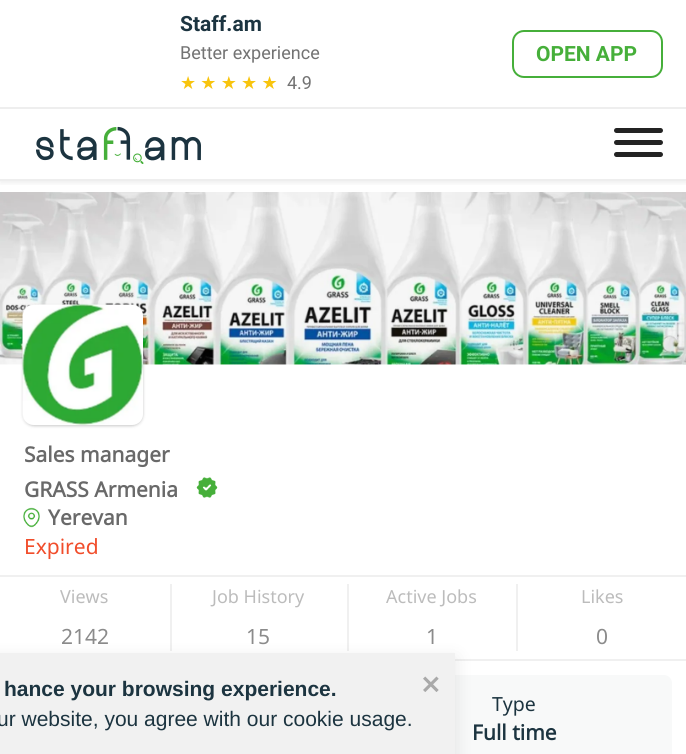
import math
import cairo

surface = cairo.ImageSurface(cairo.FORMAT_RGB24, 686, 754)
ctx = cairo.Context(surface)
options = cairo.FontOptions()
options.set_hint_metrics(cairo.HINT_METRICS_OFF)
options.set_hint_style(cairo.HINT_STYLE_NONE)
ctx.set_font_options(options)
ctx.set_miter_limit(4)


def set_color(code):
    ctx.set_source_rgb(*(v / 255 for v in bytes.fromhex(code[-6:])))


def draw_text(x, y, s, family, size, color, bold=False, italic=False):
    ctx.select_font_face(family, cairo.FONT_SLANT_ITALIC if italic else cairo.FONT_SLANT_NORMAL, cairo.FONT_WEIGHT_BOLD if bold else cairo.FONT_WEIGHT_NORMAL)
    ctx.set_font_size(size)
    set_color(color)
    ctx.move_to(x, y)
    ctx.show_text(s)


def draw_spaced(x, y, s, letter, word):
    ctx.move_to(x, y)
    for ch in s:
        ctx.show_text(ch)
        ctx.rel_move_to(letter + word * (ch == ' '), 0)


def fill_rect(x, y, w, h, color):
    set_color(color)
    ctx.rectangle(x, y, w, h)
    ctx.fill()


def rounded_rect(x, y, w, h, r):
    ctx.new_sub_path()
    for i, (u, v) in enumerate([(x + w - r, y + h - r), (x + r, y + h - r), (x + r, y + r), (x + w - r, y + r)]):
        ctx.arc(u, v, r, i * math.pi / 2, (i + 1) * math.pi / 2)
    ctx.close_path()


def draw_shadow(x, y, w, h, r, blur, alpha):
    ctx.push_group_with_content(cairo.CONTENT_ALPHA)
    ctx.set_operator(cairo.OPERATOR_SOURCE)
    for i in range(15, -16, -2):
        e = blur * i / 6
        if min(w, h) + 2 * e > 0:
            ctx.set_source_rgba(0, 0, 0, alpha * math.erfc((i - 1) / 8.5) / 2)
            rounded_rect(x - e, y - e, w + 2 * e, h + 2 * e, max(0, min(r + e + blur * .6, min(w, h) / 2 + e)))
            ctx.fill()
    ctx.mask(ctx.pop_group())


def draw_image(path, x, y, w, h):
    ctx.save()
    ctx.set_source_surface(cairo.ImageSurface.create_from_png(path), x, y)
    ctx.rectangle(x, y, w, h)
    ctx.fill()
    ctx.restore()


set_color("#ffffff")
ctx.paint()
draw_image("assets/img2.png", 0, 192, 686, 173)
ctx.save()
ctx.rectangle(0, 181, 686, 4)
ctx.clip()
set_color("#000000")
draw_shadow(0, 63, 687, 120, 0, 3, 0.07)
ctx.restore()
fill_rect(0, 107, 686, 2, "#eeeeee")
draw_text(180, 31, "Staff.am", "Roboto", 21, "#1c3440", bold=True)
draw_text(180, 59, "Better experience", "Roboto", 18, "#737373")
ctx.select_font_face("DejaVu Sans")
set_color("#f8c40d")
draw_spaced(180, 89, "★ ★ ★ ★ ★", 0, -1.5)
draw_text(287, 89, "4.9", "Roboto", 18, "#737373")
rounded_rect(513, 31, 149, 46, 11)
set_color("#46af3a")
ctx.stroke()
draw_text(536, 61, "OPEN APP", "Roboto", 21, "#46af3a", bold=True)
fill_rect(0, 179, 686, 2, "#eeeeee")
draw_image("assets/img1.png", 36, 126, 165, 38)
set_color("#232323")
rounded_rect(614, 128, 49, 5, 2.5)
ctx.fill()
rounded_rect(614, 140, 49, 5, 2.5)
ctx.fill()
rounded_rect(614, 152, 49, 5, 2.5)
ctx.fill()
fill_rect(0, 575, 686, 2, "#f0f0f0")
set_color("#000000")
draw_shadow(23, 306, 120, 120, 11, 1.5, 0.22)
set_color("#ffffff")
rounded_rect(23, 305, 120, 120, 11)
ctx.fill()
draw_image("assets/img3.png", 22, 304, 121, 121)
draw_text(24, 462, "Sales manager", "Noto Sans", 21, "#696969", bold=True)
draw_text(24, 497, "GRASS Armenia", "Noto Sans", 21, "#696969", bold=True)
draw_image("assets/img4.png", 196, 477, 22, 21)
draw_image("assets/img5.png", 23, 507, 17, 21)
draw_text(48, 525, "Yerevan", "Noto Sans", 21, "#696969", bold=True)
draw_text(24, 554, "Expired", "Noto Sans", 21, "#f14d2b")
fill_rect(455, 659, 231, 2, "#f0f0f0")
draw_text(60, 603, "Views", "Noto Sans", 18, "#bcbcbc")
draw_text(61, 644, "2142", "Noto Sans", 21, "#8b8b8b")
fill_rect(347, 584, 2, 67, "#f0f0f0")
fill_rect(170, 584, 2, 67, "#f0f0f0")
draw_text(212, 603, "Job History", "Noto Sans", 18, "#bcbcbc")
draw_text(246, 644, "15", "Noto Sans", 21, "#8b8b8b")
fill_rect(516, 584, 2, 67, "#f0f0f0")
draw_text(386, 603, "Active Jobs", "Noto Sans", 18, "#bcbcbc")
draw_text(426, 644, "1", "Noto Sans", 21, "#8b8b8b")
draw_text(581, 603, "Likes", "Noto Sans", 18, "#bcbcbc")
draw_text(596, 644, "0", "Noto Sans", 21, "#8b8b8b")
set_color("#f8f9f9")
rounded_rect(357, 675, 315, 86, 8)
ctx.fill()
draw_text(492, 711, "Type", "Noto Sans", 19.5, "#1c3440")
draw_text(472, 740, "Full time", "Noto Sans", 21, "#1c3440", bold=True)
set_color("#000000")
draw_shadow(-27, 659, 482, 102, 0, 9, 0.1)
fill_rect(0, 653, 455, 101, "#f1f1f1")
draw_text(4, 696, "hance your browsing experience.", "Liberation Sans", 21, "#1c3440", bold=True)
draw_text(-3, 726, "ur website, you agree with our cookie usage.", "Liberation Sans", 21, "#1c3440")
draw_image("assets/img6.png", 423, 676, 16, 16)
surface.write_to_png("output.png")
